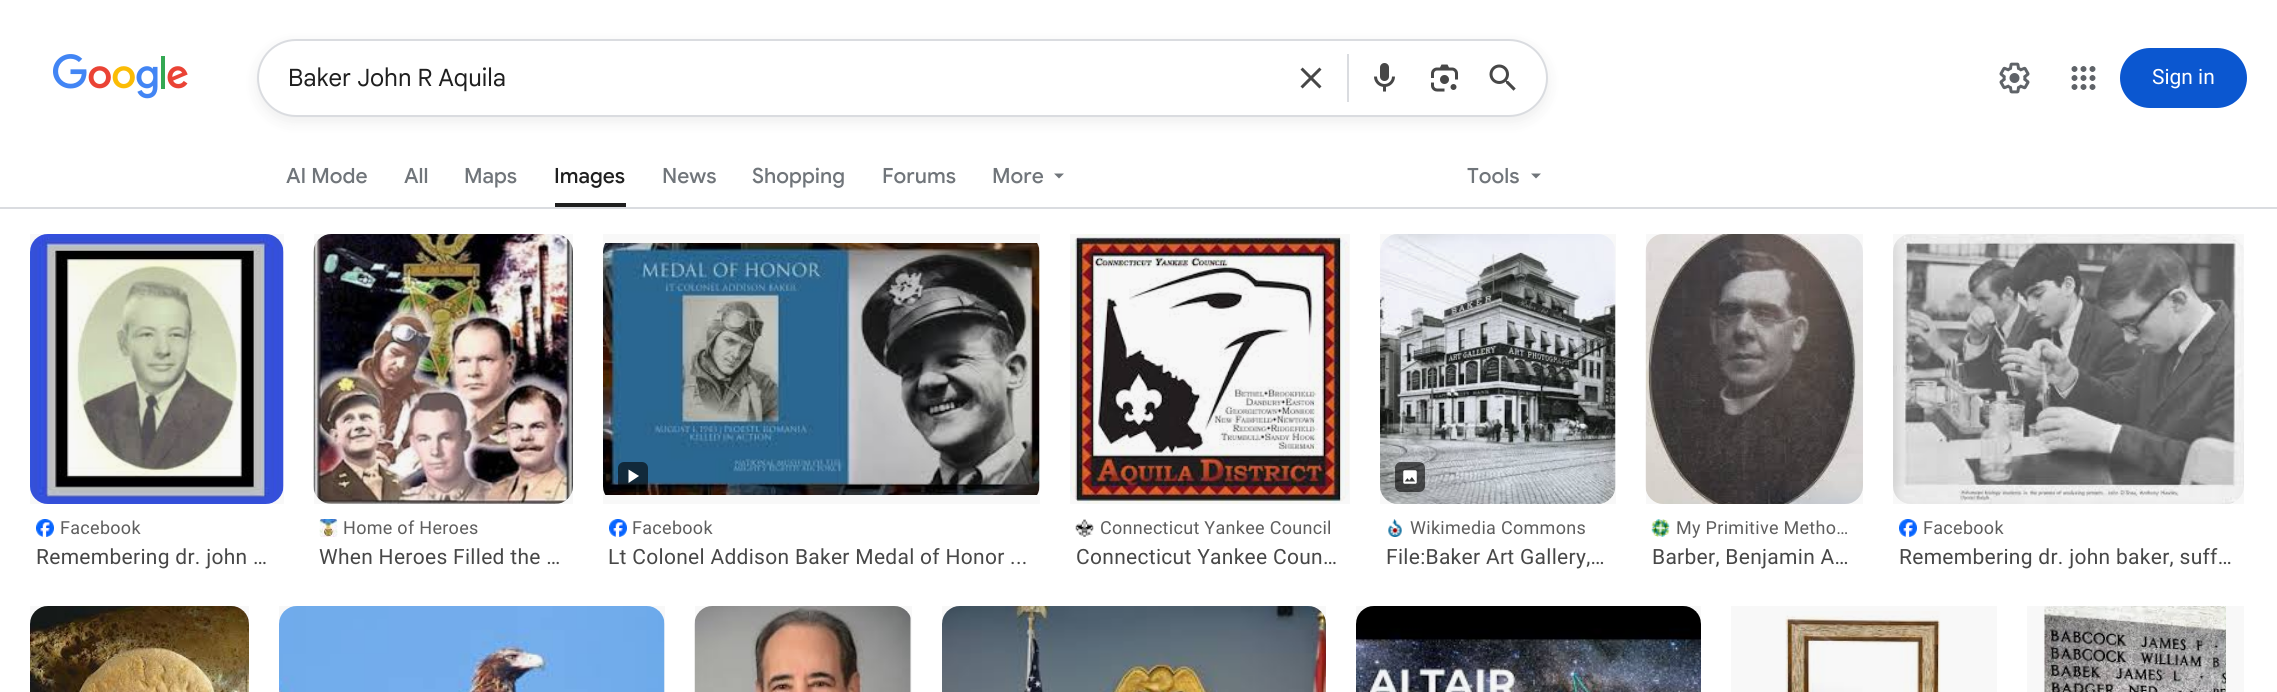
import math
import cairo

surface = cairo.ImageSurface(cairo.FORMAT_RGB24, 2277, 692)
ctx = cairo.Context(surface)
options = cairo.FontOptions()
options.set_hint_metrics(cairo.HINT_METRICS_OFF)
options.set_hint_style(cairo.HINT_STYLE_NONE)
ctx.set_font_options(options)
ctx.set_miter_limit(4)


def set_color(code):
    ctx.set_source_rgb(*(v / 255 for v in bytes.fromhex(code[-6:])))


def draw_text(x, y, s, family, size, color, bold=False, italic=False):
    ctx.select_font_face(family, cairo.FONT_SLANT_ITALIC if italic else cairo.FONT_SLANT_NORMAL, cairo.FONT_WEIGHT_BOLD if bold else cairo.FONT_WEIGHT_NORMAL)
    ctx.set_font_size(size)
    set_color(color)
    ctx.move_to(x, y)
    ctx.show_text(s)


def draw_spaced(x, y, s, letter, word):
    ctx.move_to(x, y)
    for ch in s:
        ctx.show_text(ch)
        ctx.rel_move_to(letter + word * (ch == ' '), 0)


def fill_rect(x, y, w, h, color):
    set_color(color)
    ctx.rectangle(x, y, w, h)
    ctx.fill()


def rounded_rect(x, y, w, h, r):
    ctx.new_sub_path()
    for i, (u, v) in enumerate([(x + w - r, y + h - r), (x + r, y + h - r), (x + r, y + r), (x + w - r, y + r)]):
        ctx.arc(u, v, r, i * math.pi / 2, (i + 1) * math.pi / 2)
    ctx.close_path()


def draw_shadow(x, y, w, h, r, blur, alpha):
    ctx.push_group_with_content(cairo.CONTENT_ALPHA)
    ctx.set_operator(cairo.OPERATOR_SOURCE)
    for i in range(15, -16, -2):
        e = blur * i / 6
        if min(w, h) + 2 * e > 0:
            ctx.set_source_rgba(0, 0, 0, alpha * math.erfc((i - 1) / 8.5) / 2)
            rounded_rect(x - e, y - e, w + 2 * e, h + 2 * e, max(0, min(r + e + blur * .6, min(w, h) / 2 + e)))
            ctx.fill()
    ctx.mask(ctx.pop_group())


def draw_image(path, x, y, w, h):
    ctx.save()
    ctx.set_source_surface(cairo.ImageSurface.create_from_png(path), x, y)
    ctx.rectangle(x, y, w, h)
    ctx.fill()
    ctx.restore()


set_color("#ffffff")
ctx.paint()
draw_image("assets/img1.png", 53, 54, 135, 45)
set_color("#1f1f1f")
draw_shadow(257, 44, 1291, 78, 39, 7.5, 0.08)
set_color("#ffffff")
rounded_rect(258, 40, 1289, 76, 38)
ctx.fill_preserve()
set_color("#dadce0")
ctx.stroke()
draw_text(288, 86, "Baker John R Aquila", "Google Sans", 24, "#1f1f1f")
draw_image("assets/img2.png", 1300, 67, 22, 22)
fill_rect(1347, 54, 2, 48, "#dadce0")
draw_image("assets/img3.png", 1374, 63, 21, 29)
draw_image("assets/img4.png", 1431, 64, 27, 28)
draw_image("assets/img5.png", 1489, 64, 27, 27)
draw_image("assets/img6.png", 1999, 62, 31, 32)
draw_image("assets/img7.png", 2071, 66, 25, 24)
set_color("#0b57d0")
rounded_rect(2120, 48, 127, 60, 30)
ctx.fill()
draw_text(2152, 84, "Sign in", "Roboto", 21, "#ffffff")
draw_text(286, 183, "AI Mode", "Google Sans Medium", 21, "#70757a")
draw_text(404, 183, "All", "Google Sans Medium", 21, "#70757a")
draw_text(464, 183, "Maps", "Google Sans Medium", 21, "#70757a")
fill_rect(555, 203, 71, 4, "#1f1f1f")
draw_text(554, 183, "Images", "Google Sans Medium", 21, "#1f1f1f")
draw_text(662, 183, "News", "Google Sans Medium", 21, "#70757a")
draw_text(752, 183, "Shopping", "Google Sans Medium", 21, "#70757a")
draw_text(882, 183, "Forums", "Google Sans Medium", 21, "#70757a")
draw_text(992, 183, "More", "Google Sans Medium", 21, "#70757a")
ctx.new_path()
ctx.move_to(1054, 173.5)
ctx.line_to(1059, 178.5)
ctx.line_to(1064, 173.5)
ctx.close_path()
ctx.fill()
draw_text(1467, 183, "Tools", "Google Sans Medium", 21, "#70757a")
ctx.new_path()
ctx.move_to(1531, 173.5)
ctx.line_to(1536, 178.5)
ctx.line_to(1541, 173.5)
ctx.close_path()
ctx.fill()
fill_rect(0, 207, 2277, 2, "#dadce0")
draw_image("assets/img8.png", 30, 234, 254, 270)
ctx.set_source_rgba(0, 0, 0, 0.03)
ctx.rectangle(30, 234, 254, 270)
ctx.fill()
draw_image("assets/img9.png", 36, 519, 18, 18)
ctx.select_font_face("Roboto")
ctx.set_font_size(18)
set_color("#5e5e5e")
draw_spaced(60, 534, "Facebook", 0.3, 0)
ctx.set_font_size(21)
set_color("#474747")
draw_spaced(36, 564, "Remembering dr. john …", 0.3, 0)
draw_image("assets/img10.png", 313, 234, 260, 270)
ctx.set_source_rgba(0, 0, 0, 0.03)
ctx.rectangle(314, 234, 259, 270)
ctx.fill()
draw_image("assets/img11.png", 319, 519, 19, 18)
ctx.set_font_size(18)
set_color("#5e5e5e")
draw_spaced(343, 534, "Home of Heroes", 0.3, 0)
ctx.set_font_size(21)
set_color("#474747")
draw_spaced(319, 564, "When Heroes Filled the …", 0.3, 0)
draw_image("assets/img12.png", 603, 243, 437, 252)
ctx.set_source_rgba(0, 0, 0, 0.03)
ctx.rectangle(603, 234, 437, 270)
ctx.fill()
ctx.set_source_rgba(0, 0, 0, 0.6)
rounded_rect(618, 462, 30, 30, 6)
ctx.fill()
set_color("#ffffff")
ctx.new_path()
ctx.move_to(628.5, 469.5)
ctx.line_to(628.5, 483)
ctx.line_to(639, 476)
ctx.close_path()
ctx.fill()
draw_image("assets/img13.png", 609, 519, 18, 18)
ctx.set_font_size(18)
set_color("#5e5e5e")
draw_spaced(632, 534, "Facebook", 0.3, 0)
ctx.set_font_size(21)
set_color("#474747")
draw_spaced(608, 564, "Lt Colonel Addison Baker Medal of Honor ...", 0.3, 0)
draw_image("assets/img14.png", 1070, 234, 279, 270)
ctx.set_source_rgba(0, 0, 0, 0.03)
ctx.rectangle(1070, 234, 280, 270)
ctx.fill()
draw_image("assets/img15.png", 1075, 519, 19, 18)
ctx.set_font_size(18)
set_color("#5e5e5e")
draw_spaced(1100, 534, "Connecticut Yankee Council", 0.3, 0)
ctx.set_font_size(21)
set_color("#474747")
draw_spaced(1076, 564, "Connecticut Yankee Coun…", 0.3, 0)
draw_image("assets/img16.png", 1380, 234, 236, 270)
ctx.set_source_rgba(0, 0, 0, 0.03)
ctx.rectangle(1380, 234, 236, 270)
ctx.fill()
ctx.set_source_rgba(0, 0, 0, 0.6)
rounded_rect(1395, 462, 30, 30, 6)
ctx.fill()
draw_image("assets/img17.png", 1403, 470, 14, 14)
draw_image("assets/img18.png", 1388, 519, 14, 18)
ctx.set_font_size(18)
set_color("#5e5e5e")
draw_spaced(1410, 534, "Wikimedia Commons", 0.3, 0)
ctx.set_font_size(21)
set_color("#474747")
draw_spaced(1386, 564, "File:Baker Art Gallery,…", 0.3, 0)
draw_image("assets/img19.png", 1645, 234, 218, 270)
ctx.set_source_rgba(0, 0, 0, 0.03)
ctx.rectangle(1646, 234, 217, 270)
ctx.fill()
draw_image("assets/img20.png", 1651, 519, 19, 18)
ctx.set_font_size(18)
set_color("#5e5e5e")
draw_spaced(1676, 534, "My Primitive Metho…", 0.3, 0)
ctx.set_font_size(21)
set_color("#474747")
draw_spaced(1652, 564, "Barber, Benjamin A…", 0.3, 0)
draw_image("assets/img21.png", 1893, 234, 351, 270)
ctx.set_source_rgba(0, 0, 0, 0.03)
ctx.rectangle(1893, 234, 351, 270)
ctx.fill()
draw_image("assets/img22.png", 1899, 519, 18, 18)
ctx.set_font_size(18)
set_color("#5e5e5e")
draw_spaced(1923, 534, "Facebook", 0.3, 0)
ctx.set_font_size(21)
set_color("#474747")
draw_spaced(1899, 564, "Remembering dr. john baker, suff…", 0.3, 0)
draw_image("assets/img23.png", 30, 606, 219, 86)
ctx.set_source_rgba(0, 0, 0, 0.03)
ctx.rectangle(30, 606, 219, 86)
ctx.fill()
draw_image("assets/img24.png", 279, 606, 386, 86)
ctx.rectangle(279, 606, 386, 86)
ctx.fill()
draw_image("assets/img25.png", 694, 606, 217, 86)
ctx.rectangle(695, 606, 217, 86)
ctx.fill()
draw_image("assets/img26.png", 942, 606, 384, 86)
ctx.rectangle(942, 606, 384, 86)
ctx.fill()
draw_image("assets/img27.png", 1356, 606, 345, 86)
ctx.rectangle(1356, 606, 345, 86)
ctx.fill()
draw_image("assets/img28.png", 1785, 611, 156, 81)
ctx.rectangle(1731, 606, 266, 86)
ctx.fill()
draw_image("assets/img29.png", 2044, 606, 182, 86)
ctx.rectangle(2027, 606, 217, 86)
ctx.fill()
surface.write_to_png("output.png")
